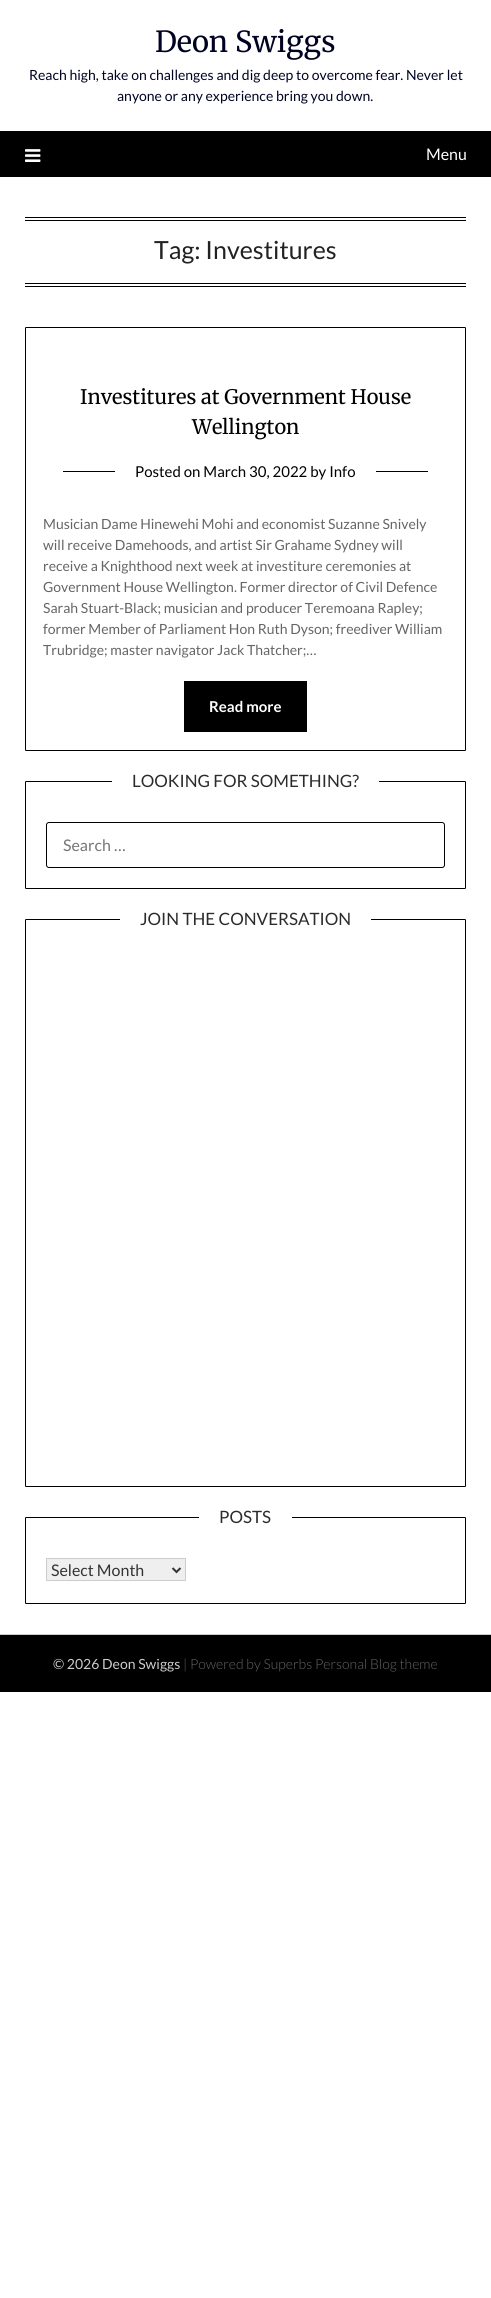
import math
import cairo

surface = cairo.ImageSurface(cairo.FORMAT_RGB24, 491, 2298)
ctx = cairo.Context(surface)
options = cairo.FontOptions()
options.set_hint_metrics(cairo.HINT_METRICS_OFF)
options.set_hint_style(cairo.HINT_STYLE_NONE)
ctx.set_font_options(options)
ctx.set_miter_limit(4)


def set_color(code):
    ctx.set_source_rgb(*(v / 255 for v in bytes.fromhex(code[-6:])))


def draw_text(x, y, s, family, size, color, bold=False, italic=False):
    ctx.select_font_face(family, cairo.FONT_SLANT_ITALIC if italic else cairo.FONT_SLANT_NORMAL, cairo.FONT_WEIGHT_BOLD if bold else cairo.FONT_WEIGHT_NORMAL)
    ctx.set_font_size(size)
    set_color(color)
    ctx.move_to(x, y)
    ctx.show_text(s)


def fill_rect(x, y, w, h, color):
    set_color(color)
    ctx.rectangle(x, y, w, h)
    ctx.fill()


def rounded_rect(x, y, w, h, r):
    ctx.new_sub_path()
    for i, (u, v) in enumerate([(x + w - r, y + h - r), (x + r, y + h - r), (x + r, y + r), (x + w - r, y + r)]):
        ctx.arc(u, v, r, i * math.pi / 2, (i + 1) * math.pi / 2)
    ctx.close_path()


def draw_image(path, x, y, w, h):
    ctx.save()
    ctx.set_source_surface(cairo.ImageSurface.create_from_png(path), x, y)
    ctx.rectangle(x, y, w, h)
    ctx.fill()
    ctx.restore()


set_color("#ffffff")
ctx.paint()
draw_text(155, 52, "Deon Swiggs", "Merriweather", 29, "#000222")
draw_text(29, 80, "Reach high, take on challenges and dig deep to overcome fear. Never let", "Lato", 14, "#000222")
draw_text(117, 101, "anyone or any experience bring you down.", "Lato", 14, "#000222")
fill_rect(0, 131, 491, 46, "#000000")
draw_image("assets/img1.png", 25, 149, 16, 13)
draw_text(426, 160, "Menu", "Lato", 16, "#ffffff")
fill_rect(25, 217, 441, 1, "#000000")
fill_rect(25, 220, 441, 1, "#000000")
fill_rect(25, 283, 441, 1, "#000000")
fill_rect(25, 286, 441, 1, "#000000")
draw_text(154, 259, "Tag: Investitures", "Lato", 25, "#222222")
rounded_rect(25.5, 327.5, 440, 423, 0.5)
set_color("#000000")
ctx.set_line_width(1)
ctx.stroke()
draw_text(80, 404, "Investitures at Government House", "Merriweather", 20, "#000000")
draw_text(192, 434, "Wellington", "Merriweather", 20, "#000000")
fill_rect(63, 471, 365, 1, "#000000")
fill_rect(115, 471, 261, 1, "#ffffff")
draw_text(135, 477, "Posted on March 30, 2022 by Info", "Lato", 15, "#000000")
draw_text(43, 529, "Musician Dame Hinewehi Mohi and economist Suzanne Snively", "Lato", 14, "#656565")
draw_text(43, 550, "will receive Damehoods, and artist Sir Grahame Sydney will", "Lato", 14, "#656565")
draw_text(43, 571, "receive a Knighthood next week at investiture ceremonies at", "Lato", 14, "#656565")
draw_text(43, 592, "Government House Wellington. Former director of Civil Defence", "Lato", 14, "#656565")
draw_text(43, 613, "Sarah Stuart-Black; musician and producer Teremoana Rapley;", "Lato", 14, "#656565")
draw_text(43, 634, "former Member of Parliament Hon Ruth Dyson; freediver William", "Lato", 14, "#656565")
draw_text(43, 655, "Trubridge; master navigator Jack Thatcher;…", "Lato", 14, "#656565")
fill_rect(184, 681, 123, 51, "#000000")
draw_text(209, 712, "Read more", "Lato", 15, "#ffffff", bold=True)
rounded_rect(25.5, 781.5, 440, 107, 0.5)
set_color("#000000")
ctx.stroke()
fill_rect(112, 781, 267, 1, "#ffffff")
draw_text(132, 787, "LOOKING FOR SOMETHING?", "Lato", 17, "#2b2b2b")
rounded_rect(46.5, 822.5, 398, 45, 2.5)
set_color("#000000")
ctx.stroke()
draw_text(63, 851, "Search …", "Lato", 16, "#757575")
rounded_rect(25.5, 919.5, 440, 567, 0.5)
set_color("#000000")
ctx.stroke()
fill_rect(120, 919, 251, 1, "#ffffff")
draw_text(140, 925, "JOIN THE CONVERSATION", "Lato", 17, "#2b2b2b")
rounded_rect(25.5, 1517.5, 440, 86, 0.5)
set_color("#000000")
ctx.stroke()
fill_rect(199, 1517, 93, 1, "#ffffff")
draw_text(219, 1523, "POSTS", "Lato", 17, "#2b2b2b")
set_color("#efefef")
ctx.rectangle(46.5, 1558.5, 139, 22)
ctx.fill_preserve()
set_color("#cccccc")
ctx.stroke()
ctx.new_path()
ctx.move_to(172.5, 1568)
ctx.line_to(176.5, 1572)
ctx.line_to(180.5, 1568)
set_color("#333333")
ctx.set_line_width(2)
ctx.stroke()
draw_text(51, 1576, "Select Month", "Lato", 16, "#333333")
fill_rect(0, 1635, 491, 57, "#000000")
fill_rect(0, 1634, 491, 1, "#cccccc")
draw_text(53, 1669, "© 2026 Deon Swiggs", "Lato", 14, "#cccccc")
draw_text(183, 1669, "| Powered by Superbs Personal Blog theme", "Lato Light", 14, "#656565")
surface.write_to_png("output.png")
